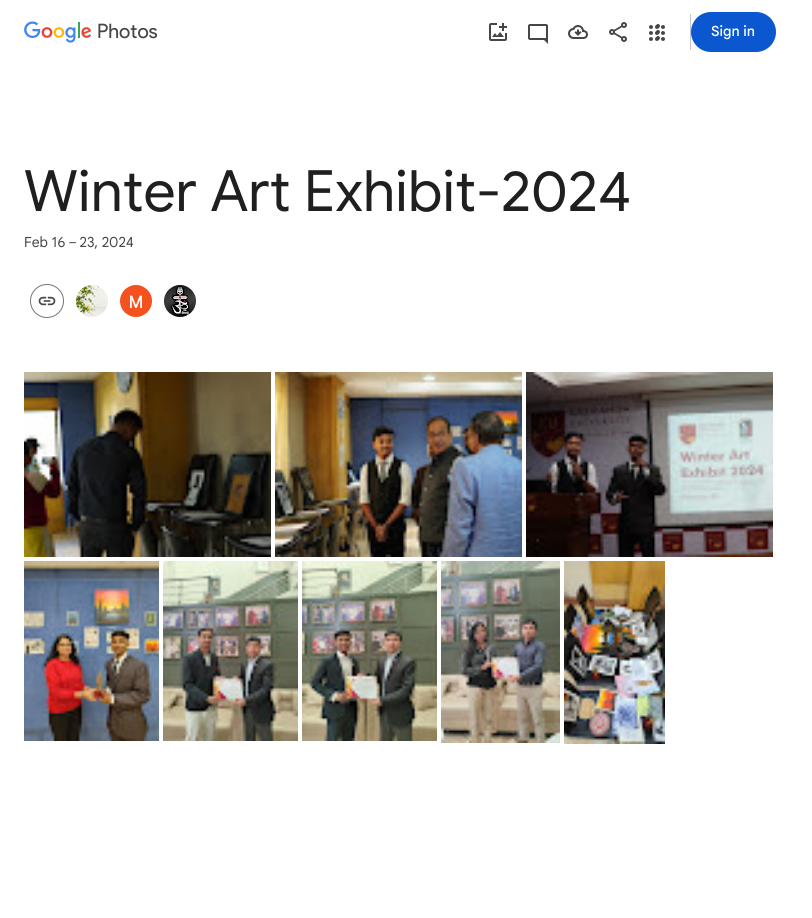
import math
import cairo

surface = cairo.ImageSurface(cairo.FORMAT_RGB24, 812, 918)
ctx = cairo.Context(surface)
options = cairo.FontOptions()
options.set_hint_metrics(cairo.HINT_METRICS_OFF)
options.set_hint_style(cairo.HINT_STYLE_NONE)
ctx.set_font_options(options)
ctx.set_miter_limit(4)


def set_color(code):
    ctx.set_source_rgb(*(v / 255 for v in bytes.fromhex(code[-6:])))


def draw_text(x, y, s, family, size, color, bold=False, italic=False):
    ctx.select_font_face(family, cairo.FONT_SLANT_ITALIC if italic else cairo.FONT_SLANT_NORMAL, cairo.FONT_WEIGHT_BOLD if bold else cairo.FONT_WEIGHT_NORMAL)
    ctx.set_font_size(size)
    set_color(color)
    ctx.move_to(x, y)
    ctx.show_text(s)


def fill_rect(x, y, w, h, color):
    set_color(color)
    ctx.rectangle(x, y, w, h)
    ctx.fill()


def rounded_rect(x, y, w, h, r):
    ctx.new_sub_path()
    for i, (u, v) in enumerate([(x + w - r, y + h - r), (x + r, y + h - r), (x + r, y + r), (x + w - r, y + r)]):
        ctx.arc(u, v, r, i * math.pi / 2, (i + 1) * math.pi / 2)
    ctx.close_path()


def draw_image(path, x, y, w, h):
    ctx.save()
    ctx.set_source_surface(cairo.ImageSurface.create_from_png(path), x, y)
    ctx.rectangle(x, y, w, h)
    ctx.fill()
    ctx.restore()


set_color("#ffffff")
ctx.paint()
draw_image("assets/img1.png", 24, 21, 68, 22)
draw_text(97, 38, "Photos", "Product Sans", 20, "#444746")
draw_image("assets/img2.png", 489, 23, 18, 18)
draw_image("assets/img3.png", 528, 24, 20, 20)
draw_image("assets/img4.png", 568, 25, 20, 14)
draw_image("assets/img5.png", 609, 22, 18, 20)
draw_image("assets/img6.png", 656, 24, 4, 16)
fill_rect(690, 14, 1, 36, "#c4c7c5")
draw_text(24, 211, "Winter Art Exhibit-2024", "Google Sans", 57, "#1f1f1f")
draw_text(24, 247, "Feb 16 – 23, 2024", "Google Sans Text", 14, "#444746")
ctx.new_path()
ctx.arc(47, 301, 16.5, 0, 2 * math.pi)
set_color("#747775")
ctx.set_line_width(1)
ctx.stroke()
draw_image("assets/img7.png", 38, 296, 18, 10)
draw_image("assets/img8.png", 76, 285, 32, 32)
draw_image("assets/img9.png", 120, 285, 32, 32)
draw_image("assets/img10.png", 164, 285, 32, 32)
draw_image("assets/img11.png", 24, 372, 247, 185)
draw_image("assets/img12.png", 275, 372, 247, 185)
draw_image("assets/img13.png", 526, 372, 247, 185)
draw_image("assets/img14.png", 24, 561, 135, 180)
draw_image("assets/img15.png", 163, 561, 135, 180)
draw_image("assets/img16.png", 302, 561, 135, 180)
draw_image("assets/img17.png", 441, 561, 119, 182)
draw_image("assets/img18.png", 564, 561, 101, 183)
draw_image("assets/img19.png", 649, 25, 16, 16)
set_color("#0b57d0")
rounded_rect(691, 12, 85, 40, 20)
ctx.fill()
draw_text(711, 36, "Sign in", "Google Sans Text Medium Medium", 14, "#ffffff")
surface.write_to_png("output.png")
